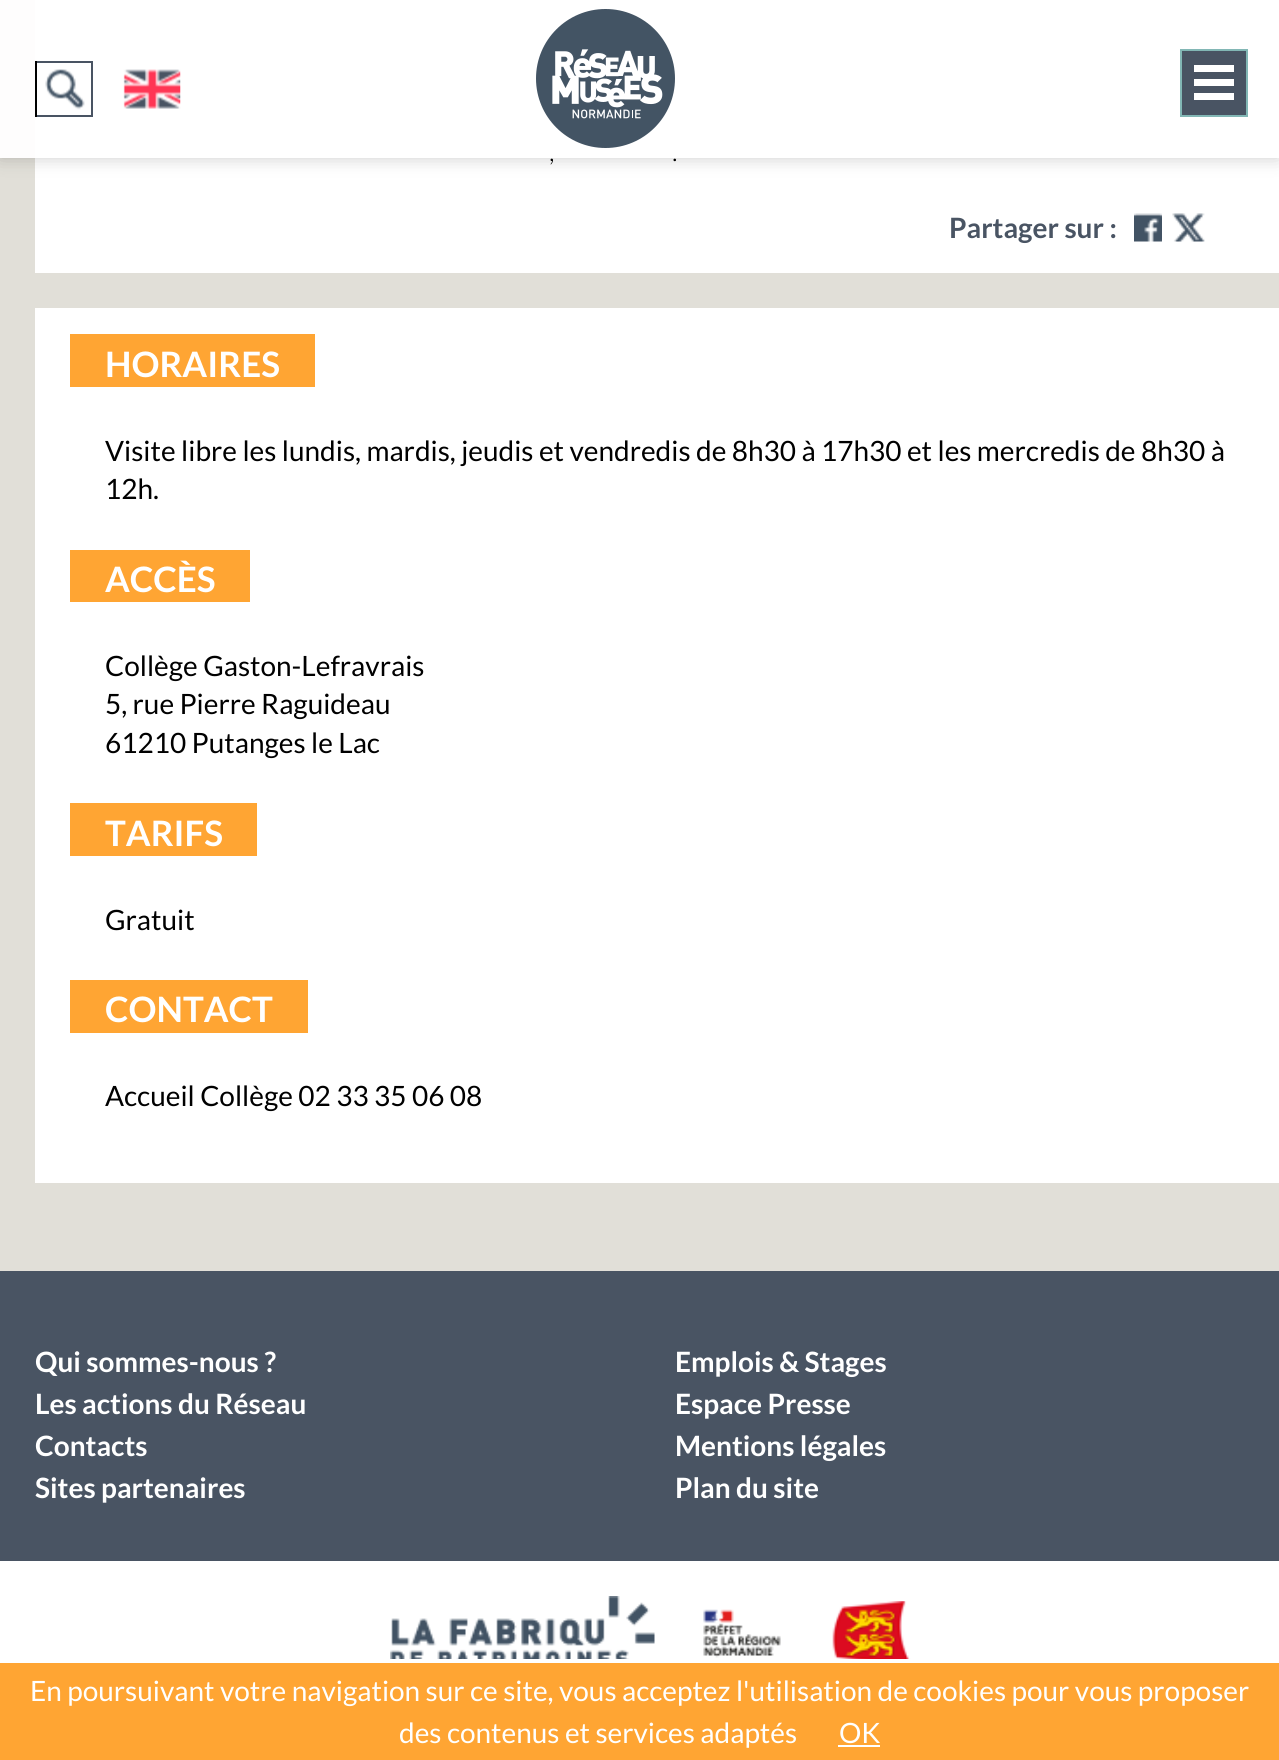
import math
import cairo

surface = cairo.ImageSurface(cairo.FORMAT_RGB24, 1279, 1760)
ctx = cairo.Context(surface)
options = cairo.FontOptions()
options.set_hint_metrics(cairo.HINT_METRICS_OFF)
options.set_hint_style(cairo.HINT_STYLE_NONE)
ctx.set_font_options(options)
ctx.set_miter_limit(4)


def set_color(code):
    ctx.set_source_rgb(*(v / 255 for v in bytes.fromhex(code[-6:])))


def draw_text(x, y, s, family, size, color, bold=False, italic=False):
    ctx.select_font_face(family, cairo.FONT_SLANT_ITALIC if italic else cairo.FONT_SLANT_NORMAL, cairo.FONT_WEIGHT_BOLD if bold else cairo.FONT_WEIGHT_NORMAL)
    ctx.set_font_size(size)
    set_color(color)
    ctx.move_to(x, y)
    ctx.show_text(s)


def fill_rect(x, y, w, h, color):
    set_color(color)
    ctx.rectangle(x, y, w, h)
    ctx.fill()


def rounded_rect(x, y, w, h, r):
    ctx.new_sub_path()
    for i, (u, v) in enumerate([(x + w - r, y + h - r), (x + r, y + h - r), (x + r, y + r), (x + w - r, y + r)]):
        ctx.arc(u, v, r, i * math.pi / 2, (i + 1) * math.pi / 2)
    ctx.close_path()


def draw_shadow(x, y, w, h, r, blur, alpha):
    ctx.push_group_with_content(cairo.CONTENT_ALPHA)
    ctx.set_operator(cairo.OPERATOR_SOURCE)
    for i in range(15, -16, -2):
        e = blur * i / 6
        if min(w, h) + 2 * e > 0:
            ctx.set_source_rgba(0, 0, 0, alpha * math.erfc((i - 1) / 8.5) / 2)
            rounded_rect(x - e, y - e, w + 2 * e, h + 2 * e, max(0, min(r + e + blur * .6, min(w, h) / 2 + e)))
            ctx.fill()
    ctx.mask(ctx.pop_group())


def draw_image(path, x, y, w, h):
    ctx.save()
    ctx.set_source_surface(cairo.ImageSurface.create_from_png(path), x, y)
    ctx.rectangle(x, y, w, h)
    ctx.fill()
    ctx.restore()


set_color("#e1dfd8")
ctx.paint()
fill_rect(35, 0, 1244, 273, "#ffffff")
ctx.save()
ctx.set_fill_rule(cairo.FILL_RULE_EVEN_ODD)
ctx.new_path()
ctx.move_to(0, 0)
ctx.line_to(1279, 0)
ctx.line_to(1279, 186)
ctx.line_to(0, 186)
ctx.close_path()
ctx.move_to(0, 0)
ctx.line_to(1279, 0)
ctx.line_to(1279, 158)
ctx.line_to(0, 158)
ctx.close_path()
ctx.clip()
set_color("#000000")
draw_shadow(0, 0, 1279, 158, 0, 9, 0.2)
ctx.restore()
ctx.set_source_rgba(1, 1, 1, 0.95)
ctx.rectangle(0, 0, 1279, 158)
ctx.fill()
ctx.rectangle(36, 62, 56, 54)
set_color("#495463")
ctx.stroke()
draw_image("assets/img1.png", 45, 69, 40, 41)
fill_rect(35, 61, 2, 56, "#000000")
draw_image("assets/img2.png", 123, 69, 58, 40)
draw_image("assets/img3.png", 536, 9, 139, 139)
set_color("#495463")
ctx.rectangle(1181, 50, 66, 66)
ctx.fill_preserve()
set_color("#82b7b5")
ctx.stroke()
fill_rect(1194, 65, 40, 7, "#ffffff")
fill_rect(1194, 79, 40, 7, "#ffffff")
fill_rect(1194, 93, 40, 7, "#ffffff")
draw_text(549, 161, ",", "Lato Light", 28, "#000000")
draw_text(672, 161, ".", "Lato Light", 28, "#000000")
draw_text(949, 238, "Partager sur :", "Lato", 28, "#495463", bold=True)
draw_image("assets/img4.png", 1134, 213, 28, 29)
draw_image("assets/img5.png", 1172, 213, 33, 29)
fill_rect(35, 308, 1244, 875, "#ffffff")
fill_rect(70, 334, 245, 53, "#ffa533")
draw_text(105, 377, "HORAIRES", "Lato", 35, "#ffffff", bold=True)
draw_text(105, 461, "Visite libre les lundis, mardis, jeudis et vendredis de 8h30 à 17h30 et les mercredis de 8h30 à", "Lato", 28, "#000000")
draw_text(105, 499, "12h.", "Lato", 28, "#000000")
fill_rect(70, 550, 180, 52, "#ffa533")
draw_text(105, 592, "ACCÈS", "Lato", 35, "#ffffff", bold=True)
draw_text(105, 676, "Collège Gaston-Lefravrais", "Lato", 28, "#000000")
draw_text(105, 714, "5, rue Pierre Raguideau", "Lato", 28, "#000000")
draw_text(105, 753, "61210 Putanges le Lac", "Lato", 28, "#000000")
fill_rect(70, 803, 187, 53, "#ffa533")
draw_text(105, 846, "TARIFS", "Lato", 35, "#ffffff", bold=True)
draw_text(105, 930, "Gratuit", "Lato", 28, "#000000")
fill_rect(70, 980, 238, 53, "#ffa533")
draw_text(105, 1022, "CONTACT", "Lato", 35, "#ffffff", bold=True)
draw_text(105, 1106, "Accueil Collège 02 33 35 06 08", "Lato", 28, "#000000")
fill_rect(0, 1271, 1279, 290, "#495463")
draw_text(35, 1372, "Qui sommes-nous ?", "Lato", 28, "#ffffff", bold=True)
draw_text(675, 1372, "Emplois & Stages", "Lato", 28, "#ffffff", bold=True)
draw_text(35, 1414, "Les actions du Réseau", "Lato", 28, "#ffffff", bold=True)
draw_text(675, 1414, "Espace Presse", "Lato", 28, "#ffffff", bold=True)
draw_text(35, 1456, "Contacts", "Lato", 28, "#ffffff", bold=True)
draw_text(675, 1456, "Mentions légales", "Lato", 28, "#ffffff", bold=True)
draw_text(35, 1498, "Sites partenaires", "Lato", 28, "#ffffff", bold=True)
draw_text(675, 1498, "Plan du site", "Lato", 28, "#ffffff", bold=True)
fill_rect(0, 1561, 1279, 102, "#ffffff")
draw_image("assets/img6.png", 390, 1596, 265, 63)
draw_image("assets/img7.png", 703, 1609, 78, 49)
draw_image("assets/img8.png", 820, 1601, 104, 58)
fill_rect(0, 1663, 1279, 97, "#ffa533")
draw_text(30, 1701, "En poursuivant votre navigation sur ce site, vous acceptez l'utilisation de cookies pour vous proposer", "Lato", 28, "#ffffff")
draw_text(399, 1743, "des contenus et services adaptés", "Lato", 28, "#ffffff")
draw_text(839, 1743, "OK", "Lato", 28, "#ffffff")
fill_rect(838, 1745, 42, 2, "#ffffff")
surface.write_to_png("output.png")
